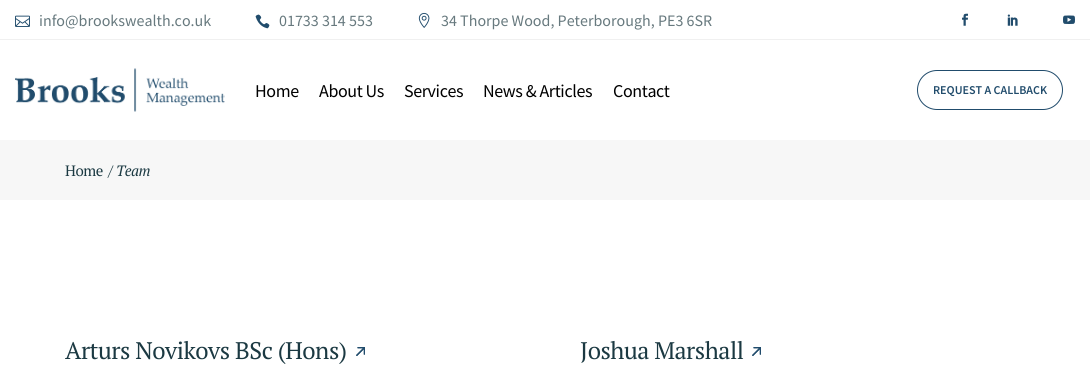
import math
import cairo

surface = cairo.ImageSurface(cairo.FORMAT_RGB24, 1090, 370)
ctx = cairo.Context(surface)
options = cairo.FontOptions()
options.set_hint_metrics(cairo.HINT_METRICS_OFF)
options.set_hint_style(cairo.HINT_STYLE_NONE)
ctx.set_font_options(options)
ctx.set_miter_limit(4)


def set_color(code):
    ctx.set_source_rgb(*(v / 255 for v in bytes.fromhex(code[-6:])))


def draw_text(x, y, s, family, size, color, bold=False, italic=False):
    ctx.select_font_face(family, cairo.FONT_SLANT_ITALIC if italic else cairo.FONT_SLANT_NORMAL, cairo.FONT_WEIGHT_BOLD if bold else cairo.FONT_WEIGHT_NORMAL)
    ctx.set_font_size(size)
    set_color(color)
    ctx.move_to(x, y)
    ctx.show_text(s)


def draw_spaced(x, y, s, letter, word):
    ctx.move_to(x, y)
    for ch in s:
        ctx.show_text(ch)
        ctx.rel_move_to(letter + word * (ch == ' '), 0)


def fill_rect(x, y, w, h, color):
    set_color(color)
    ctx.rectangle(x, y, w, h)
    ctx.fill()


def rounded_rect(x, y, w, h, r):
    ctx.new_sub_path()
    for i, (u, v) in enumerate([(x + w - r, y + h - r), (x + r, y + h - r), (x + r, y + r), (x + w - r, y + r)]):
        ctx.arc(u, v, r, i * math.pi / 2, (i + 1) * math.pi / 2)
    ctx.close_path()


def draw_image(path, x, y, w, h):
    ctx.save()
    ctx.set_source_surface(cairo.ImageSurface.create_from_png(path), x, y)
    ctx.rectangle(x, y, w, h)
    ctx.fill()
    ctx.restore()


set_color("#ffffff")
ctx.paint()
fill_rect(0, 39, 1090, 1, "#f0f0f0")
draw_image("assets/img1.png", 15, 15, 15, 12)
draw_text(39, 26, "info@brookswealth.co.uk", "Source Sans Pro", 16, "#67797e")
draw_image("assets/img2.png", 255, 14, 15, 15)
draw_text(279, 26, "01733 314 553", "Source Sans Pro", 16, "#67797e")
draw_image("assets/img3.png", 418, 12, 12, 16)
draw_text(441, 26, "34 Thorpe Wood, Peterborough, PE3 6SR", "Source Sans Pro", 16, "#67797e")
draw_image("assets/img4.png", 962, 13, 6, 13)
draw_image("assets/img5.png", 1007, 14, 11, 12)
draw_image("assets/img6.png", 1063, 15, 12, 9)
draw_image("assets/img7.png", 15, 68, 210, 44)
ctx.set_font_size(18)
set_color("#000000")
draw_spaced(255, 97, "Home", -0.4, 0)
draw_spaced(319, 97, "About Us", -0.4, 0)
draw_spaced(404, 97, "Services", -0.4, 0)
draw_spaced(483, 97, "News & Articles", -0.4, 0)
draw_spaced(613, 97, "Contact", -0.4, 0)
rounded_rect(917.5, 70.5, 145, 39, 19.5)
set_color("#214c6c")
ctx.set_line_width(1)
ctx.stroke()
draw_text(933, 94, "REQUEST A CALLBACK", "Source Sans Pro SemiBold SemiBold", 12, "#214c6c")
fill_rect(0, 140, 1090, 60, "#f7f7f7")
ctx.select_font_face("PT Serif")
ctx.set_font_size(15)
set_color("#1b3942")
draw_spaced(65, 176, "Home", -0.5, 0)
draw_spaced(108, 176, "/", -0.5, 0)
ctx.select_font_face("PT Serif", cairo.FONT_SLANT_ITALIC)
draw_spaced(116, 176, "Team", -0.5, 0)
ctx.select_font_face("PT Serif")
ctx.set_font_size(24)
draw_spaced(65, 359, "Arturs Novikovs BSc (Hons)", -0.5, 0)
draw_image("assets/img8.png", 356, 347, 9, 9)
draw_spaced(580, 359, "Joshua Marshall", -0.5, 0)
draw_image("assets/img8.png", 752, 347, 9, 9)
surface.write_to_png("output.png")
